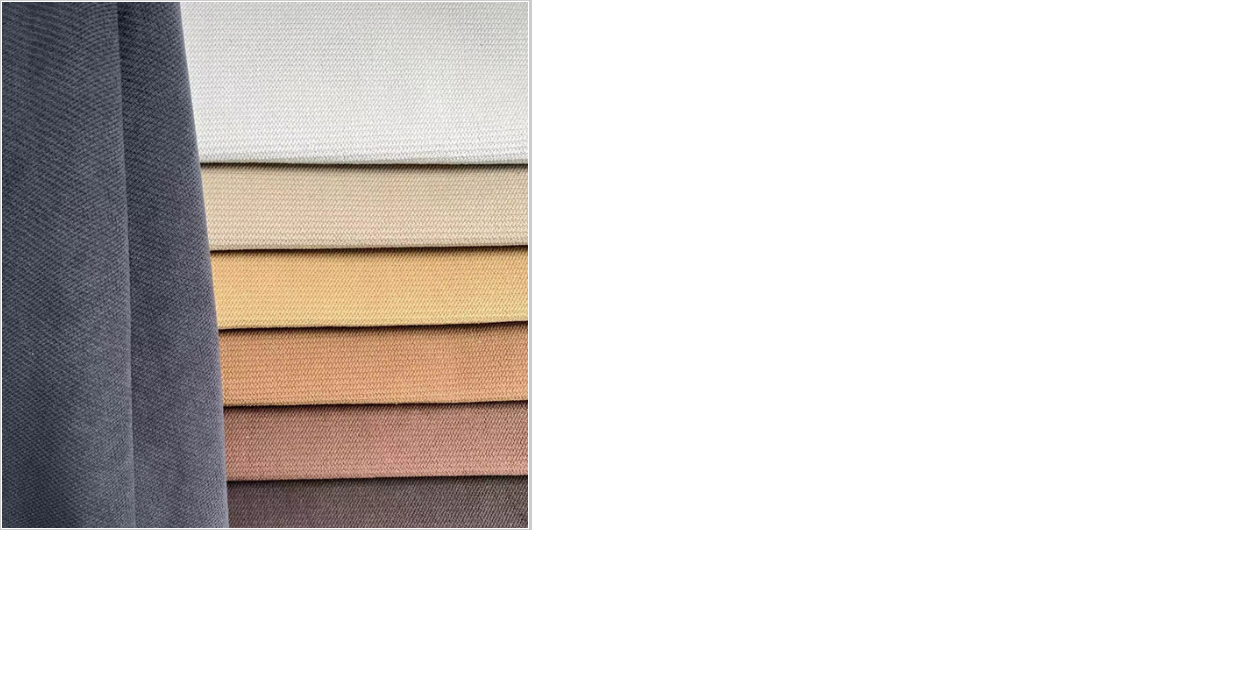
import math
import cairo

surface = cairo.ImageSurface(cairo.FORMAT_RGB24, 1233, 683)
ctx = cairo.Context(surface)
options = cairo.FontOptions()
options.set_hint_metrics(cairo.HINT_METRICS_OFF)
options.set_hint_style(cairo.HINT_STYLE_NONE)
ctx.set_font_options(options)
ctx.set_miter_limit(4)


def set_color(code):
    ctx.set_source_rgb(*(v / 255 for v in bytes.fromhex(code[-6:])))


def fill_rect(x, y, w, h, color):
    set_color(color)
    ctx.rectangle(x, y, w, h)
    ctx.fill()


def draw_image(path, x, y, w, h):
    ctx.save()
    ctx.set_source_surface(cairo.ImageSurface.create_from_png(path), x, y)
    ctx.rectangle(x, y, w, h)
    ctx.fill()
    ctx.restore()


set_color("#ffffff")
ctx.paint()
fill_rect(0, 0, 532, 530, "#cccccc")
ctx.rectangle(1.5, 1.5, 527, 527)
set_color("#ffffff")
ctx.set_line_width(1)
ctx.stroke()
draw_image("assets/img1.png", 2, 2, 526, 526)
surface.write_to_png("output.png")
